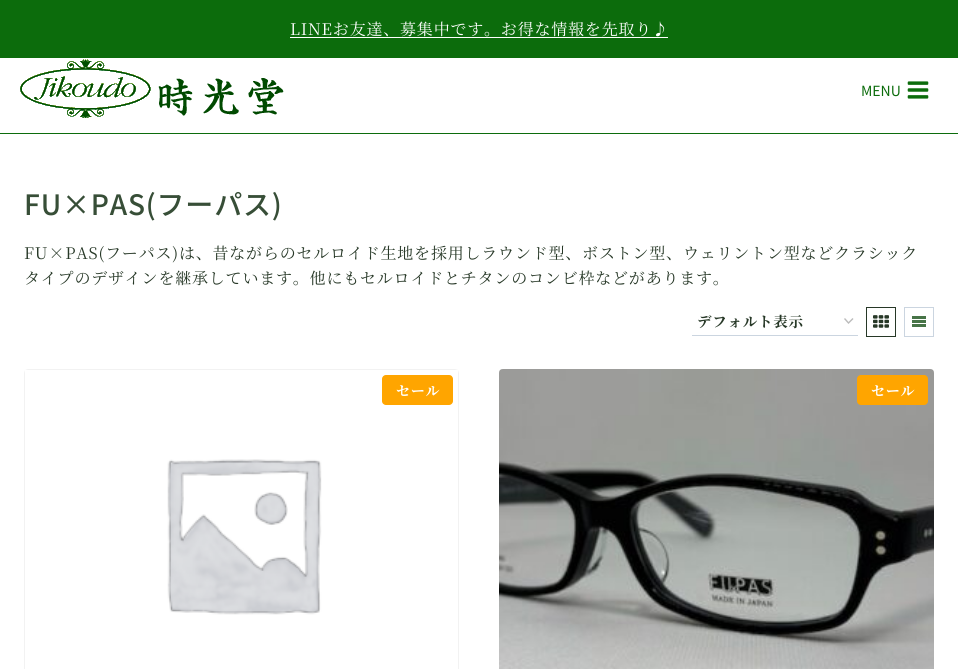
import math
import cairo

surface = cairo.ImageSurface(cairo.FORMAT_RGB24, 958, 669)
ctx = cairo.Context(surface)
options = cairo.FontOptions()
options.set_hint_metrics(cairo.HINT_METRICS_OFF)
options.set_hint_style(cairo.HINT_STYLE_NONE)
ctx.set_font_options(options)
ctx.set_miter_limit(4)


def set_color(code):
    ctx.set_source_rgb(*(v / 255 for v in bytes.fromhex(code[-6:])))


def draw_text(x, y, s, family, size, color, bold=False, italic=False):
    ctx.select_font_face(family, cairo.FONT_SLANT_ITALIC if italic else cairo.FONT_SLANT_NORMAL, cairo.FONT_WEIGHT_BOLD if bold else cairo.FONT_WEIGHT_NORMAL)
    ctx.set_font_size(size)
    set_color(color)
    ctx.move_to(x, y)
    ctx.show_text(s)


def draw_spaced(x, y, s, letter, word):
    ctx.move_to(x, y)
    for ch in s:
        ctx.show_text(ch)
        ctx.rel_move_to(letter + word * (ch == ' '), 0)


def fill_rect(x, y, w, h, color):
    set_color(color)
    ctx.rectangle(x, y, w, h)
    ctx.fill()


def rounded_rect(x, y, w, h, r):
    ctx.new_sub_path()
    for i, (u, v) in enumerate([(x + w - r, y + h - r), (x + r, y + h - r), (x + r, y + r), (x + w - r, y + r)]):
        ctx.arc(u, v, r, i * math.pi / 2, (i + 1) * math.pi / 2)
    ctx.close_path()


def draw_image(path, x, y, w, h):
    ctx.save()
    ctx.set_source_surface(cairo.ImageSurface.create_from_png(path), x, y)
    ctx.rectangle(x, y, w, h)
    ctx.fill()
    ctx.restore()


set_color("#ffffff")
ctx.paint()
fill_rect(0, 0, 958, 58, "#0c6c0c")
ctx.select_font_face("Noto Serif JP ExtraLight")
ctx.set_font_size(16)
set_color("#ffffff")
draw_spaced(290, 35, "LINEお友達、募集中です。お得な情報を先取り♪", 0.8, 0)
fill_rect(290, 37, 378, 1, "#ffffff")
fill_rect(0, 133, 958, 1, "#0c6c0c")
draw_image("assets/img1.png", 20, 59, 264, 59)
draw_text(861, 96, "MENU", "Noto Sans JP", 14, "#0c6c0c")
draw_image("assets/img2.png", 907, 81, 22, 18)
ctx.select_font_face("Noto Sans JP Thin")
ctx.set_font_size(28)
set_color("#374e37")
draw_spaced(24, 215, "FU×PAS(フーパス)", 0.8, 0)
ctx.select_font_face("Noto Serif JP ExtraLight")
ctx.set_font_size(16)
set_color("#273827")
draw_spaced(24, 259, "FU×PAS(フーパス)は、昔ながらのセルロイド生地を採用しラウンド型、ボストン型、ウェリントン型などクラシック", 0.8, 0)
draw_spaced(24, 284, "タイプのデザインを継承しています。他にもセルロイドとチタンのコンビ枠などがあります。", 0.8, 0)
ctx.new_path()
ctx.move_to(844.5, 318.5)
ctx.line_to(848.5, 323)
ctx.line_to(853, 318.5)
set_color("#bbbbbb")
ctx.set_line_width(1.4)
ctx.stroke()
fill_rect(692, 335, 166, 1, "#cbd5e0")
ctx.select_font_face("Noto Serif JP", cairo.FONT_SLANT_NORMAL, cairo.FONT_WEIGHT_BOLD)
ctx.set_font_size(14.5)
set_color("#273827")
draw_spaced(697, 327, "デフォルト表示", 0.75, 0)
ctx.rectangle(866.5, 307.5, 29, 29)
ctx.set_line_width(1)
ctx.stroke()
draw_image("assets/img3.png", 873, 315, 16, 13)
ctx.rectangle(904.5, 307.5, 29, 29)
set_color("#cbd5e0")
ctx.stroke()
draw_image("assets/img4.png", 912, 316, 14, 11)
set_color("#f2f2f2")
ctx.set_fill_rule(cairo.FILL_RULE_EVEN_ODD)
ctx.new_path()
ctx.move_to(24, 373)
ctx.line_to(24, 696)
ctx.line_to(459, 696)
ctx.line_to(459, 373)
ctx.line_to(458, 370)
ctx.line_to(458, 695)
ctx.line_to(25, 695)
ctx.line_to(25, 370)
ctx.close_path()
ctx.move_to(28, 369)
ctx.line_to(25, 370)
ctx.line_to(458, 370)
ctx.line_to(455, 369)
ctx.close_path()
ctx.fill()
draw_image("assets/img5.png", 167, 459, 155, 156)
set_color("#ffa500")
rounded_rect(382, 375, 71, 30, 4)
ctx.fill()
ctx.set_font_size(14)
set_color("#ffffff")
draw_spaced(396, 396, "セール", 0.8, 0)
draw_image("assets/img6.png", 499, 369, 435, 300)
set_color("#ffa500")
rounded_rect(857, 375, 71, 30, 4)
ctx.fill()
set_color("#ffffff")
draw_spaced(871, 396, "セール", 0.8, 0)
surface.write_to_png("output.png")
